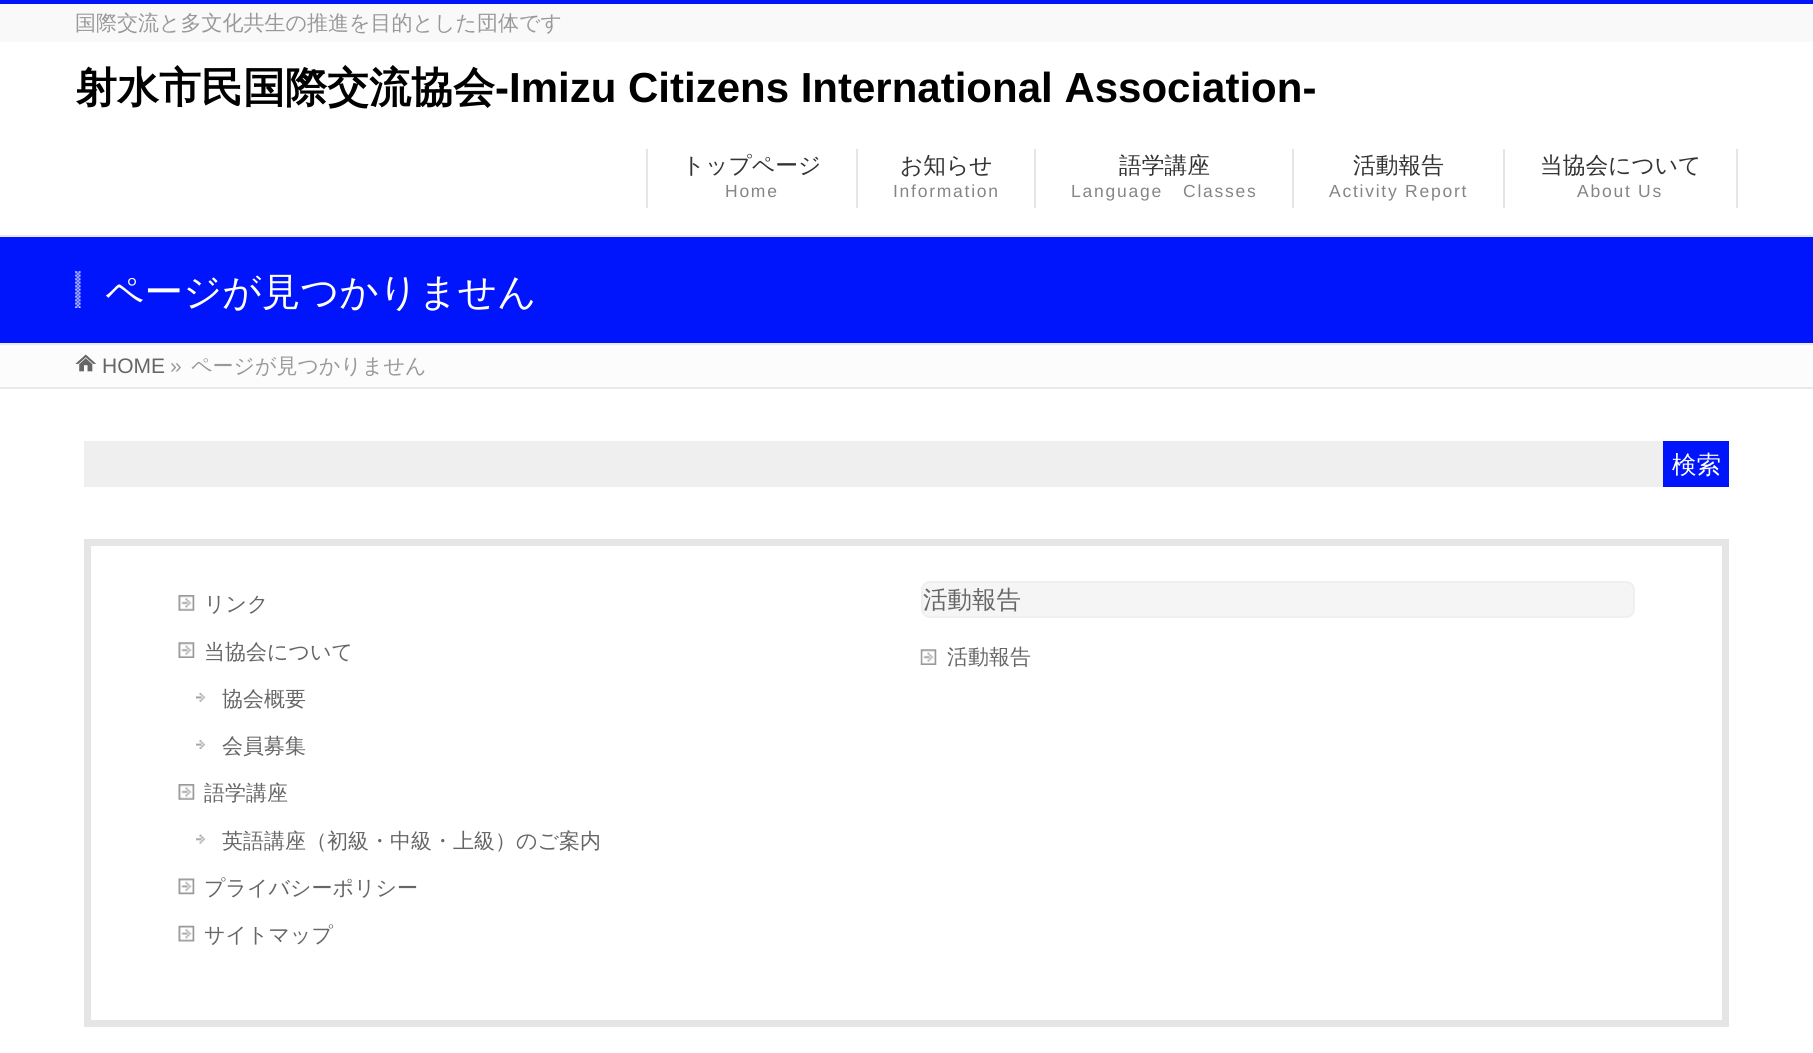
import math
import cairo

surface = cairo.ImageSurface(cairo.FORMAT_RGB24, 1813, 1053)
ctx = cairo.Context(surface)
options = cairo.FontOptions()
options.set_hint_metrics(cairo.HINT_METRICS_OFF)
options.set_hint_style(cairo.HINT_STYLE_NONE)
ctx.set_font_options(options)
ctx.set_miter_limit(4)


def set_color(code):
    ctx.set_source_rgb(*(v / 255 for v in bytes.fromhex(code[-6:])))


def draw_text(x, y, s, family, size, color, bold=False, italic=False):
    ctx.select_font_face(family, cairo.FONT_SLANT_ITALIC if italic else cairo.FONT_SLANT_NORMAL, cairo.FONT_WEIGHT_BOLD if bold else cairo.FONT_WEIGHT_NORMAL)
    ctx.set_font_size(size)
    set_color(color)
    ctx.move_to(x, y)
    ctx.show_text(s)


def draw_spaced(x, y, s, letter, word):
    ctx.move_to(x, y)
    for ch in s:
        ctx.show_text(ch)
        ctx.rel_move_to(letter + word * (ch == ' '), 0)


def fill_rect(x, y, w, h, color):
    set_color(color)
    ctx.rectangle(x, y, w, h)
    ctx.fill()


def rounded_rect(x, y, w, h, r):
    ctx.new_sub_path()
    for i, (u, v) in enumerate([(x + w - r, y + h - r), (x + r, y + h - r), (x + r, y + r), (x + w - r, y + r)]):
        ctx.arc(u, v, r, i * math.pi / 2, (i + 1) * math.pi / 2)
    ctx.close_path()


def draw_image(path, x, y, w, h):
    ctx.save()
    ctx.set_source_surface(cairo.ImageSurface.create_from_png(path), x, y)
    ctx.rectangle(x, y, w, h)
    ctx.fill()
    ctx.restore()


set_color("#ffffff")
ctx.paint()
fill_rect(0, 4, 1813, 38, "#f9f9f9")
fill_rect(0, 0, 1813, 4, "#0015fc")
draw_text(75, 30, "国際交流と多文化共生の推進を目的とした団体です", "WenQuanYi Zen Hei Medium", 21, "#999999")
draw_text(75, 102, "射水市民国際交流協会", "WenQuanYi Zen Hei", 42, "#000000", bold=True)
draw_text(495, 102, "-Imizu Citizens International Association-", "Liberation Sans", 42, "#000000", bold=True)
fill_rect(856, 149, 2, 59, "#e5e5e5")
fill_rect(646, 149, 2, 59, "#e5e5e5")
draw_text(682, 173, "トップページ", "WenQuanYi Zen Hei Medium", 22.75, "#333333")
ctx.select_font_face("Liberation Sans")
ctx.set_font_size(17.5)
set_color("#858585")
draw_spaced(725, 197, "Home", 1.75, 0)
fill_rect(1034, 149, 2, 59, "#e5e5e5")
draw_text(900, 173, "お知らせ", "WenQuanYi Zen Hei Medium", 22.75, "#333333")
ctx.select_font_face("Liberation Sans")
ctx.set_font_size(17.5)
set_color("#858585")
draw_spaced(893, 197, "Information", 1.75, 0)
fill_rect(1292, 149, 2, 59, "#e5e5e5")
draw_text(1119, 173, "語学講座", "WenQuanYi Zen Hei Medium", 22.75, "#333333")
ctx.select_font_face("Liberation Sans")
ctx.set_font_size(17.5)
set_color("#858585")
draw_spaced(1071, 197, "Language", 1.75, 0)
draw_spaced(1183, 197, "Classes", 1.75, 0)
fill_rect(1503, 149, 2, 59, "#e5e5e5")
draw_text(1353, 173, "活動報告", "WenQuanYi Zen Hei Medium", 22.75, "#333333")
ctx.select_font_face("Liberation Sans")
ctx.set_font_size(17.5)
set_color("#858585")
draw_spaced(1329, 197, "Activity Report", 1.75, 0)
fill_rect(1736, 149, 2, 59, "#e5e5e5")
draw_text(1540, 173, "当協会について", "WenQuanYi Zen Hei Medium", 22.75, "#333333")
ctx.select_font_face("Liberation Sans")
ctx.set_font_size(17.5)
set_color("#858585")
draw_spaced(1577, 197, "About Us", 1.75, 0)
fill_rect(0, 237, 1813, 106, "#0015fc")
fill_rect(0, 235, 1813, 2, "#e9e9e9")
fill_rect(0, 343, 1813, 2, "#e9e9e9")
draw_image("assets/img1.png", 75, 271, 6, 37)
draw_text(105, 305, "ページが見つかりません", "WenQuanYi Zen Hei Medium", 38.5, "#ffffff")
fill_rect(0, 345, 1813, 42, "#fcfcfc")
draw_image("assets/img2.png", 75, 354, 21, 18)
draw_text(102, 373, "HOME", "Liberation Sans", 21, "#666666")
draw_text(170, 373, "»", "Liberation Sans", 21, "#999999")
draw_text(191, 373, "ページが見つかりません", "WenQuanYi Zen Hei Medium", 21, "#999999")
fill_rect(0, 387, 1813, 2, "#e9e9e9")
fill_rect(84, 441, 1579, 46, "#efefef")
fill_rect(1663, 441, 66, 46, "#0015fc")
draw_text(1672, 473, "検索", "WenQuanYi Zen Hei Medium", 24.5, "#ffffff")
ctx.rectangle(87.5, 542.5, 1638, 481)
set_color("#e5e5e5")
ctx.set_line_width(7)
ctx.stroke()
draw_image("assets/img3.png", 178, 595, 17, 16)
draw_text(204, 611, "リンク", "WenQuanYi Zen Hei Medium", 21, "#666666")
draw_image("assets/img4.png", 178, 642, 17, 16)
draw_text(204, 659, "当協会について", "WenQuanYi Zen Hei Medium", 21, "#666666")
draw_image("assets/img5.png", 196, 693, 9, 9)
draw_text(222, 706, "協会概要", "WenQuanYi Zen Hei Medium", 21, "#666666")
draw_image("assets/img6.png", 196, 740, 9, 9)
draw_text(222, 753, "会員募集", "WenQuanYi Zen Hei Medium", 21, "#666666")
draw_image("assets/img3.png", 178, 784, 17, 16)
draw_text(204, 800, "語学講座", "WenQuanYi Zen Hei Medium", 21, "#666666")
draw_image("assets/img7.png", 196, 834, 9, 10)
draw_text(222, 848, "英語講座（初級・中級・上級）のご案内", "WenQuanYi Zen Hei Medium", 21, "#666666")
draw_image("assets/img8.png", 178, 878, 17, 17)
draw_text(204, 895, "プライバシーポリシー", "WenQuanYi Zen Hei Medium", 21, "#666666")
draw_image("assets/img9.png", 178, 925, 17, 17)
draw_text(204, 942, "サイトマップ", "WenQuanYi Zen Hei Medium", 21, "#666666")
set_color("#f5f5f5")
rounded_rect(922, 582, 712, 35, 8)
ctx.fill_preserve()
set_color("#efefef")
ctx.set_line_width(2)
ctx.stroke()
draw_text(923, 608, "活動報告", "WenQuanYi Zen Hei Medium", 24.5, "#666666")
draw_image("assets/img10.png", 920, 649, 17, 16)
draw_text(947, 664, "活動報告", "WenQuanYi Zen Hei Medium", 21, "#666666")
surface.write_to_png("output.png")
